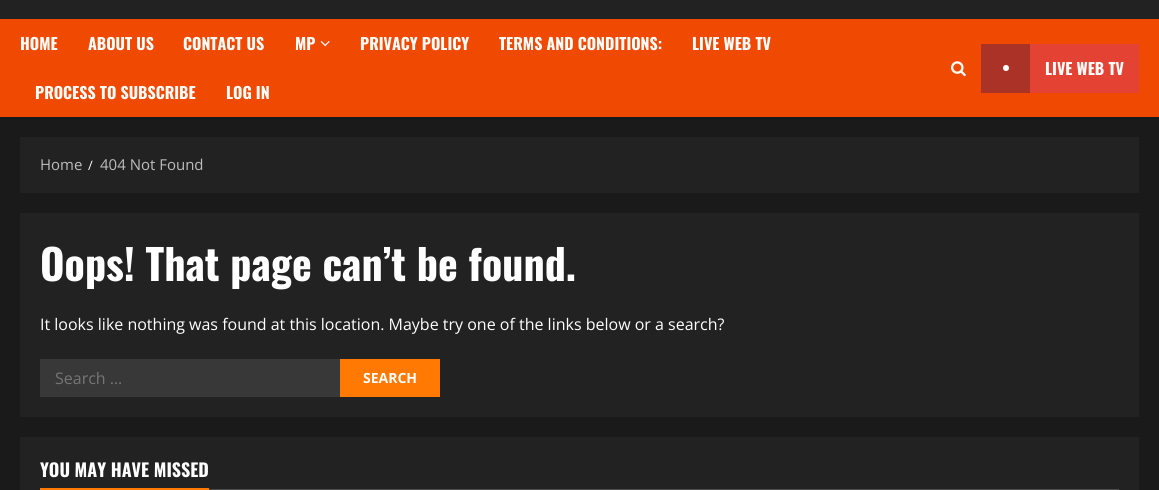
import math
import cairo

surface = cairo.ImageSurface(cairo.FORMAT_RGB24, 1159, 490)
ctx = cairo.Context(surface)
options = cairo.FontOptions()
options.set_hint_metrics(cairo.HINT_METRICS_OFF)
options.set_hint_style(cairo.HINT_STYLE_NONE)
ctx.set_font_options(options)
ctx.set_miter_limit(4)


def set_color(code):
    ctx.set_source_rgb(*(v / 255 for v in bytes.fromhex(code[-6:])))


def draw_text(x, y, s, family, size, color, bold=False, italic=False):
    ctx.select_font_face(family, cairo.FONT_SLANT_ITALIC if italic else cairo.FONT_SLANT_NORMAL, cairo.FONT_WEIGHT_BOLD if bold else cairo.FONT_WEIGHT_NORMAL)
    ctx.set_font_size(size)
    set_color(color)
    ctx.move_to(x, y)
    ctx.show_text(s)


def fill_rect(x, y, w, h, color):
    set_color(color)
    ctx.rectangle(x, y, w, h)
    ctx.fill()


def draw_image(path, x, y, w, h):
    ctx.save()
    ctx.set_source_surface(cairo.ImageSurface.create_from_png(path), x, y)
    ctx.rectangle(x, y, w, h)
    ctx.fill()
    ctx.restore()


set_color("#1a1a1a")
ctx.paint()
fill_rect(0, 0, 1159, 19, "#222222")
fill_rect(0, 19, 1159, 98, "#f04901")
draw_text(20, 50, "HOME", "Oswald", 16, "#ffffff", bold=True)
draw_text(88, 50, "ABOUT US", "Oswald", 16, "#ffffff", bold=True)
draw_text(183, 50, "CONTACT US", "Oswald", 16, "#ffffff", bold=True)
draw_text(295, 50, "MP", "Oswald", 16, "#ffffff", bold=True)
draw_image("assets/img1.png", 320, 41, 10, 6)
draw_text(360, 50, "PRIVACY POLICY", "Oswald", 16, "#ffffff", bold=True)
draw_text(499, 50, "TERMS AND CONDITIONS:", "Oswald", 16, "#ffffff", bold=True)
draw_text(692, 50, "LIVE WEB TV", "Oswald", 16, "#ffffff", bold=True)
draw_text(35, 99, "PROCESS TO SUBSCRIBE", "Oswald", 16, "#ffffff", bold=True)
draw_text(226, 99, "LOG IN", "Oswald", 16, "#ffffff", bold=True)
draw_image("assets/img2.png", 951, 61, 15, 16)
fill_rect(1030, 44, 109, 49, "#e44233")
fill_rect(981, 44, 49, 49, "#ab3226")
set_color("#ffffff")
ctx.arc(1006, 68, 3, 0, 2 * math.pi)
ctx.fill()
draw_text(1045, 75, "LIVE WEB TV", "Oswald", 16, "#ffffff", bold=True)
fill_rect(20, 137, 1119, 56, "#222222")
draw_text(40, 170, "Home", "Open Sans", 15, "#bdbdbd")
draw_text(88, 170, "/", "Open Sans", 13, "#ffffff")
draw_text(100, 170, "404 Not Found", "Open Sans", 15, "#bdbdbd")
fill_rect(20, 213, 1119, 204, "#222222")
draw_text(40, 281, "Oops! That page can’t be found.", "Oswald", 42, "#ffffff", bold=True)
draw_text(40, 330, "It looks like nothing was found at this location. Maybe try one of the links below or a search?", "Open Sans", 16, "#ffffff")
fill_rect(40, 359, 300, 38, "#383838")
draw_text(55, 384, "Search …", "Open Sans", 16, "#757575")
fill_rect(340, 359, 100, 38, "#ff7903")
draw_text(363, 383, "SEARCH", "Open Sans", 14, "#ffffff", bold=True)
fill_rect(20, 437, 1119, 53, "#222222")
fill_rect(209, 489, 910, 1, "#4e4e4e")
draw_text(40, 477, "YOU MAY HAVE MISSED", "Oswald", 18, "#ffffff", bold=True)
fill_rect(40, 488, 169, 2, "#ff7903")
surface.write_to_png("output.png")
